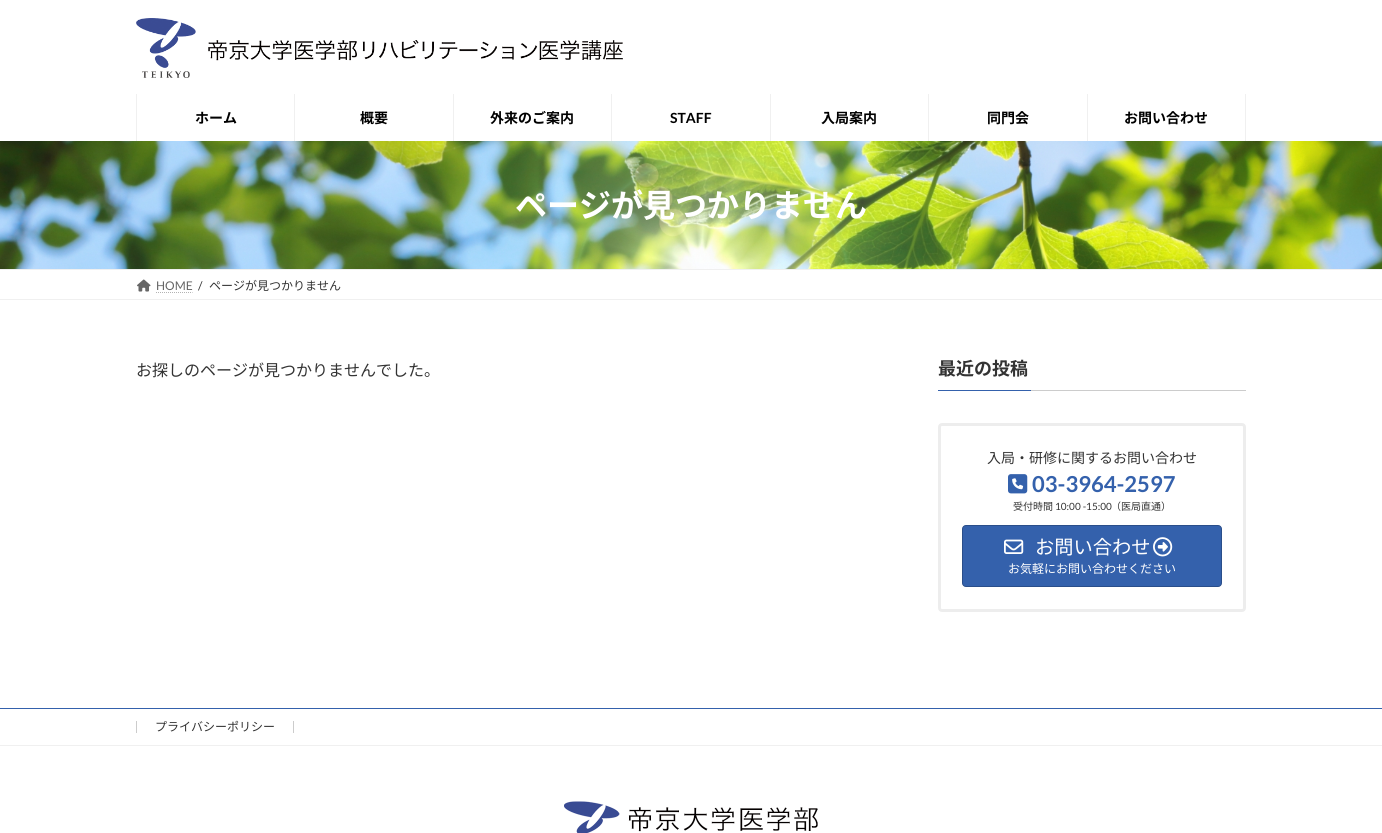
import math
import cairo

surface = cairo.ImageSurface(cairo.FORMAT_RGB24, 1382, 833)
ctx = cairo.Context(surface)
options = cairo.FontOptions()
options.set_hint_metrics(cairo.HINT_METRICS_OFF)
options.set_hint_style(cairo.HINT_STYLE_NONE)
ctx.set_font_options(options)
ctx.set_miter_limit(4)


def set_color(code):
    ctx.set_source_rgb(*(v / 255 for v in bytes.fromhex(code[-6:])))


def draw_text(x, y, s, family, size, color, bold=False, italic=False):
    ctx.select_font_face(family, cairo.FONT_SLANT_ITALIC if italic else cairo.FONT_SLANT_NORMAL, cairo.FONT_WEIGHT_BOLD if bold else cairo.FONT_WEIGHT_NORMAL)
    ctx.set_font_size(size)
    set_color(color)
    ctx.move_to(x, y)
    ctx.show_text(s)


def fill_rect(x, y, w, h, color):
    set_color(color)
    ctx.rectangle(x, y, w, h)
    ctx.fill()


def rounded_rect(x, y, w, h, r):
    ctx.new_sub_path()
    for i, (u, v) in enumerate([(x + w - r, y + h - r), (x + r, y + h - r), (x + r, y + r), (x + w - r, y + r)]):
        ctx.arc(u, v, r, i * math.pi / 2, (i + 1) * math.pi / 2)
    ctx.close_path()


def draw_image(path, x, y, w, h):
    ctx.save()
    ctx.set_source_surface(cairo.ImageSurface.create_from_png(path), x, y)
    ctx.rectangle(x, y, w, h)
    ctx.fill()
    ctx.restore()


set_color("#ffffff")
ctx.paint()
draw_image("assets/img1.png", 136, 18, 487, 60)
fill_rect(294, 94, 1, 47, "#f0f0f0")
fill_rect(136, 94, 1, 47, "#f0f0f0")
draw_text(195, 123, "ホーム", "Noto Sans JP", 14, "#000000", bold=True)
fill_rect(453, 94, 1, 47, "#f0f0f0")
draw_text(360, 123, "概要", "Noto Sans JP", 14, "#000000", bold=True)
fill_rect(611, 94, 1, 47, "#f0f0f0")
draw_text(490, 123, "外来のご案内", "Noto Sans JP", 14, "#000000", bold=True)
fill_rect(770, 94, 1, 47, "#f0f0f0")
draw_text(670, 123, "STAFF", "Lato", 14, "#000000", bold=True)
fill_rect(928, 94, 1, 47, "#f0f0f0")
draw_text(821, 123, "入局案内", "Noto Sans JP", 14, "#000000", bold=True)
fill_rect(1087, 94, 1, 47, "#f0f0f0")
draw_text(987, 123, "同門会", "Noto Sans JP", 14, "#000000", bold=True)
fill_rect(1245, 94, 1, 47, "#f0f0f0")
draw_text(1124, 123, "お問い合わせ", "Noto Sans JP", 14, "#000000", bold=True)
draw_image("assets/img2.png", 0, 141, 1382, 128)
draw_text(515, 217, "ページが見つかりません", "Noto Sans JP", 32, "#ffffff", bold=True)
fill_rect(0, 269, 1382, 1, "#f0f0f0")
fill_rect(0, 299, 1382, 1, "#f0f0f0")
draw_image("assets/img3.png", 137, 279, 14, 13)
draw_text(156, 290, "HOME", "Lato", 12, "#666666")
ctx.new_path()
ctx.move_to(156, 292.5)
ctx.line_to(192.5, 292.5)
set_color("#b3b3b3")
ctx.set_line_width(1)
ctx.set_dash([1, 1])
ctx.stroke()
draw_text(198, 290, "/", "Lato", 12, "#333333")
draw_text(209, 290, "ページが見つかりません", "Noto Sans JP", 12, "#333333")
draw_text(136, 376, "お探しのページが見つかりませんでした。", "Noto Sans JP", 16, "#333333")
fill_rect(1031, 390, 215, 1, "#cccccc")
draw_text(938, 375, "最近の投稿", "Noto Sans JP", 18, "#333333", bold=True)
fill_rect(938, 390, 93, 1, "#3461ac")
rounded_rect(939.5, 424.5, 305, 186, 2.5)
set_color("#ededed")
ctx.set_line_width(3)
ctx.set_dash([])
ctx.stroke()
draw_text(987, 463, "入局・研修に関するお問い合わせ", "Noto Sans JP", 14, "#333333")
draw_image("assets/img4.png", 1008, 474, 20, 20)
draw_text(1032, 492, "03-3964-2597", "Lato", 22, "#3461ac", bold=True)
draw_text(1013, 510, "受付時間", "Noto Sans JP", 10, "#333333")
draw_text(1055, 510, "10:00 -15:00", "Lato", 10, "#333333")
draw_text(1111, 510, "（医局直通）", "Noto Sans JP", 10, "#333333")
set_color("#3461ac")
rounded_rect(962.5, 525.5, 259, 61, 3.5)
ctx.fill_preserve()
set_color("#2a4e8a")
ctx.set_line_width(1)
ctx.stroke()
draw_image("assets/img5.png", 1004, 539, 20, 15)
draw_text(1035, 554, "お問い合わせ", "Noto Sans JP", 19.25, "#ffffff")
draw_image("assets/img6.png", 1153, 537, 20, 20)
draw_text(1008, 573, "お気軽にお問い合わせください", "Noto Sans JP", 12, "#ffffff")
fill_rect(0, 708, 1382, 1, "#3461ac")
fill_rect(0, 745, 1382, 1, "#f0f0f0")
fill_rect(293, 721, 1, 12, "#cccccc")
fill_rect(136, 721, 1, 12, "#cccccc")
draw_text(155, 731, "プライバシーポリシー", "Noto Sans JP", 12, "#333333")
draw_image("assets/img7.png", 564, 801, 254, 32)
surface.write_to_png("output.png")
